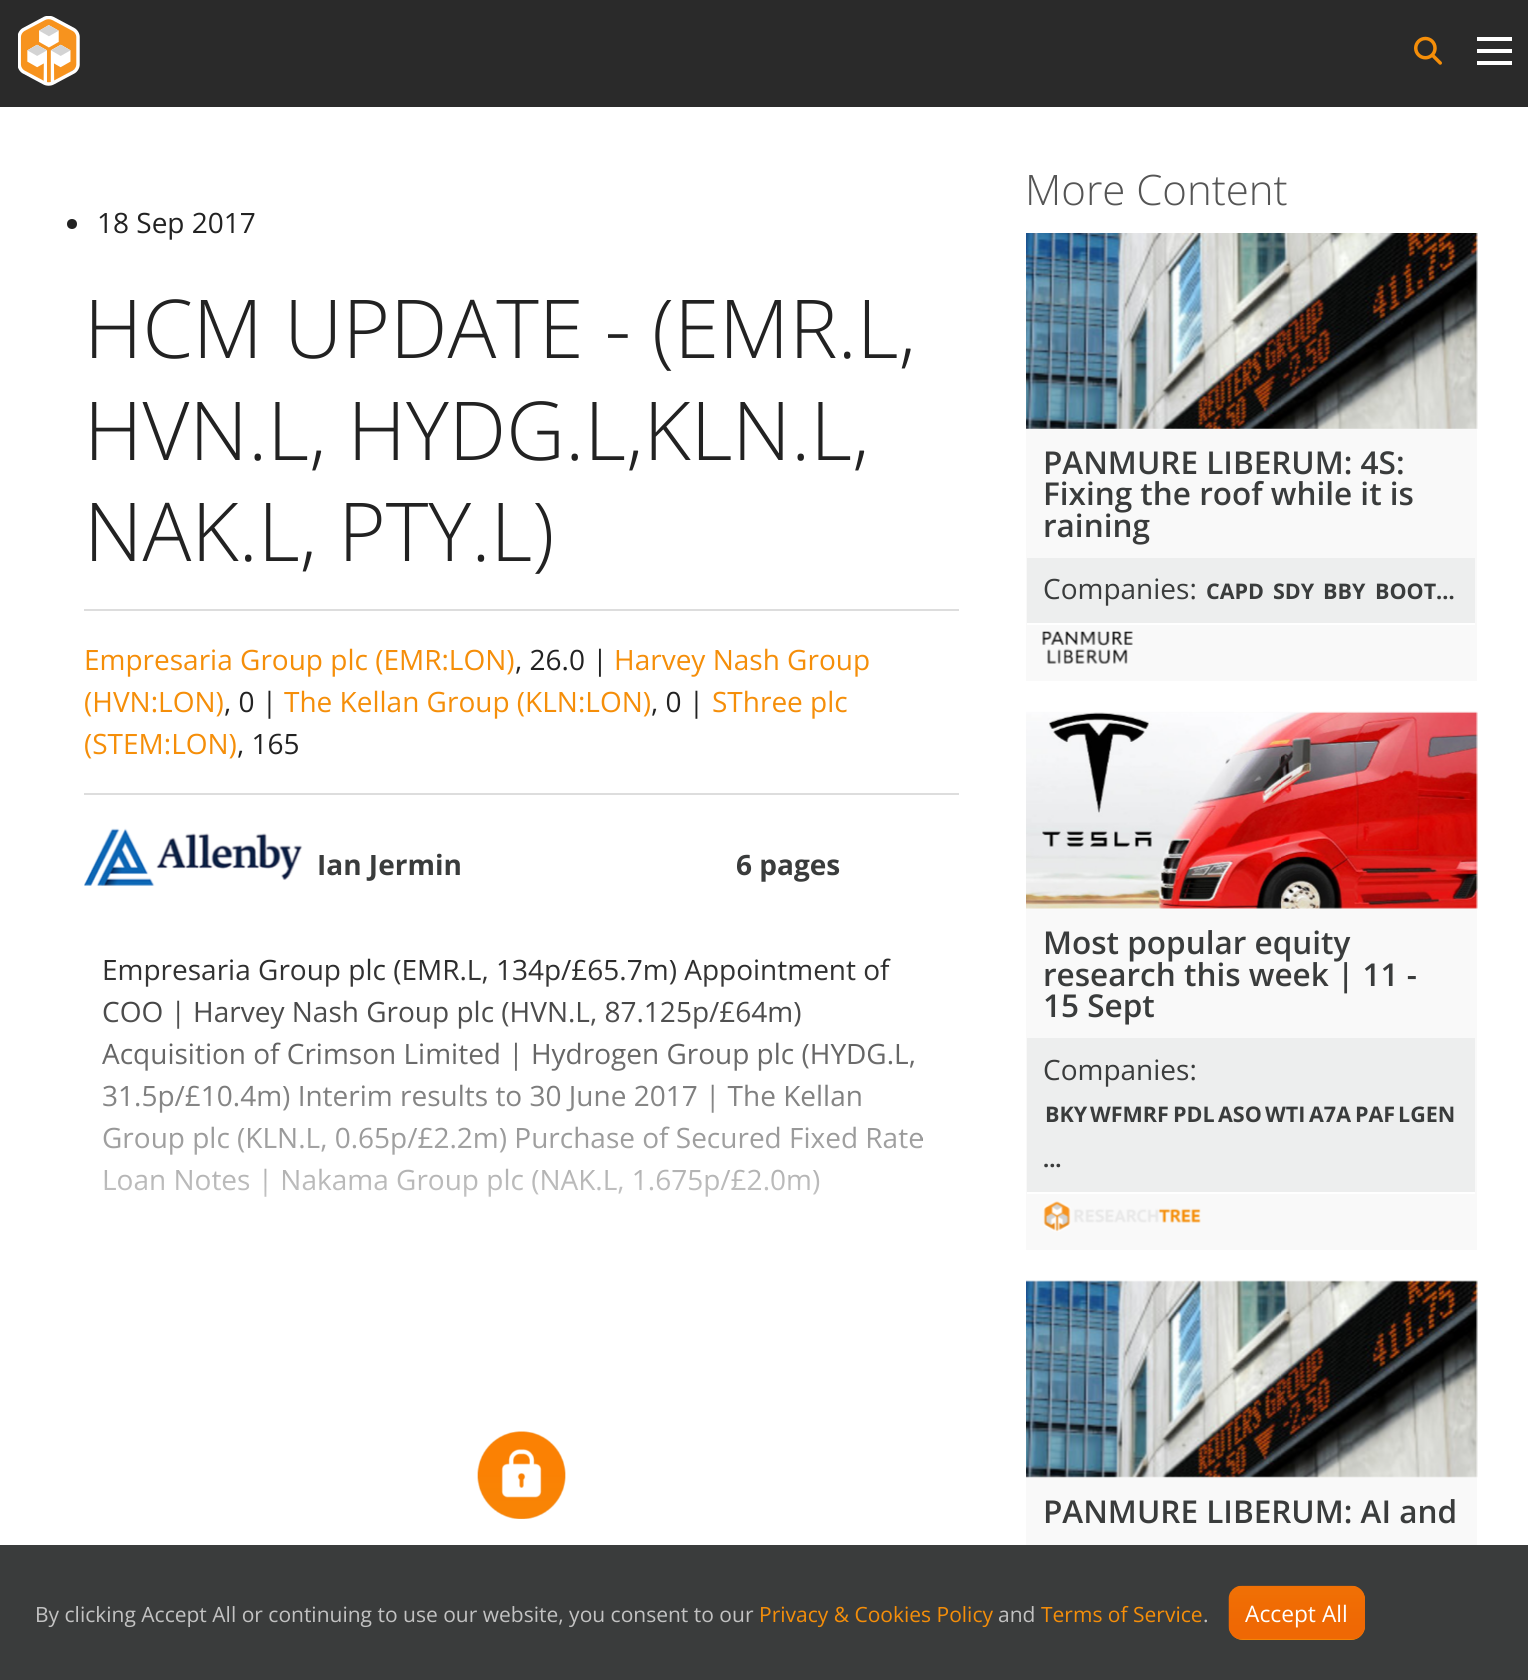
import math
import cairo

surface = cairo.ImageSurface(cairo.FORMAT_RGB24, 1528, 1680)
ctx = cairo.Context(surface)
options = cairo.FontOptions()
options.set_hint_metrics(cairo.HINT_METRICS_OFF)
options.set_hint_style(cairo.HINT_STYLE_NONE)
ctx.set_font_options(options)
ctx.set_miter_limit(4)


def set_color(code):
    ctx.set_source_rgb(*(v / 255 for v in bytes.fromhex(code[-6:])))


def draw_text(x, y, s, family, size, color, bold=False, italic=False):
    ctx.select_font_face(family, cairo.FONT_SLANT_ITALIC if italic else cairo.FONT_SLANT_NORMAL, cairo.FONT_WEIGHT_BOLD if bold else cairo.FONT_WEIGHT_NORMAL)
    ctx.set_font_size(size)
    set_color(color)
    ctx.move_to(x, y)
    ctx.show_text(s)


def fill_rect(x, y, w, h, color):
    set_color(color)
    ctx.rectangle(x, y, w, h)
    ctx.fill()


def rounded_rect(x, y, w, h, r):
    ctx.new_sub_path()
    for i, (u, v) in enumerate([(x + w - r, y + h - r), (x + r, y + h - r), (x + r, y + r), (x + w - r, y + r)]):
        ctx.arc(u, v, r, i * math.pi / 2, (i + 1) * math.pi / 2)
    ctx.close_path()


def draw_image(path, x, y, w, h):
    ctx.save()
    ctx.set_source_surface(cairo.ImageSurface.create_from_png(path), x, y)
    ctx.rectangle(x, y, w, h)
    ctx.fill()
    ctx.restore()


set_color("#ffffff")
ctx.paint()
fill_rect(0, 0, 1528, 107, "#2a2a2a")
draw_image("assets/img1.png", 18, 16, 62, 70)
draw_image("assets/img2.png", 1414, 36, 28, 29)
fill_rect(1477, 37, 35, 4, "#ffffff")
fill_rect(1477, 49, 35, 4, "#ffffff")
fill_rect(1477, 61, 35, 4, "#ffffff")
set_color("#222222")
ctx.arc(72, 224, 5, 0, 2 * math.pi)
ctx.fill()
draw_text(97, 233, "18 Sep 2017", "Open Sans", 28, "#222222")
draw_text(84, 358, "HCM UPDATE - (EMR.L,", "Open Sans Light", 81.25, "#222222")
draw_text(84, 460, "HVN.L, HYDG.L,KLN.L,", "Open Sans Light", 81.25, "#222222")
draw_text(84, 561, "NAK.L, PTY.L)", "Open Sans Light", 81.25, "#222222")
fill_rect(84, 609, 875, 2, "#dddddd")
draw_text(84, 670, "Empresaria Group plc (EMR:LON)", "Open Sans", 28, "#f58e09")
draw_text(515, 670, ", 26.0 |", "Open Sans", 28, "#222222")
draw_text(614, 670, "Harvey Nash Group", "Open Sans", 28, "#f58e09")
draw_text(84, 712, "(HVN:LON)", "Open Sans", 28, "#f58e09")
draw_text(224, 712, ", 0 |", "Open Sans", 28, "#222222")
draw_text(284, 712, "The Kellan Group (KLN:LON)", "Open Sans", 28, "#f58e09")
draw_text(651, 712, ", 0 |", "Open Sans", 28, "#222222")
draw_text(712, 712, "SThree plc", "Open Sans", 28, "#f58e09")
draw_text(84, 754, "(STEM:LON)", "Open Sans", 28, "#f58e09")
draw_text(237, 754, ", 165", "Open Sans", 28, "#222222")
fill_rect(84, 793, 875, 2, "#dddddd")
draw_image("assets/img3.png", 84, 828, 219, 58)
draw_text(317, 875, "Ian Jermin", "Open Sans", 28, "#3a3c3c", bold=True)
draw_text(736, 875, "6 pages", "Open Sans", 28, "#3a3c3c", bold=True)
draw_text(102, 980, "Empresaria Group plc (EMR.L, 134p/£65.7m) Appointment of", "Open Sans", 28, "#222222")
draw_text(102, 1022, "COO | Harvey Nash Group plc (HVN.L, 87.125p/£64m)", "Open Sans", 28, "#222222")
draw_text(102, 1064, "Acquisition of Crimson Limited | Hydrogen Group plc (HYDG.L,", "Open Sans", 28, "#222222")
draw_text(102, 1106, "31.5p/£10.4m) Interim results to 30 June 2017 | The Kellan", "Open Sans", 28, "#222222")
draw_text(102, 1148, "Group plc (KLN.L, 0.65p/£2.2m) Purchase of Secured Fixed Rate", "Open Sans", 28, "#222222")
draw_text(102, 1190, "Loan Notes | Nakama Group plc (NAK.L, 1.675p/£2.0m)", "Open Sans", 28, "#222222")
gradient = cairo.LinearGradient(522, 949, 522, 1327)
gradient.add_color_stop_rgba(0, 1, 1, 1, 0)
gradient.add_color_stop_rgba(0.9, 1, 1, 1, 1)
ctx.set_source(gradient)
ctx.rectangle(101, 959, 821, 238)
ctx.fill()
draw_image("assets/img4.png", 477, 1431, 89, 88)
draw_text(1025, 205, "More Content", "Open Sans Light", 42, "#555555")
fill_rect(1026, 233, 451, 448, "#f9f9f9")
draw_image("assets/img5.png", 1026, 233, 452, 196)
draw_text(1043, 474, "PANMURE LIBERUM: 4S:", "Open Sans SemiBold", 31.5, "#3a3c3c")
draw_text(1043, 505, "Fixing the roof while it is", "Open Sans SemiBold", 31.5, "#3a3c3c")
draw_text(1043, 537, "raining", "Open Sans SemiBold", 31.5, "#3a3c3c")
fill_rect(1027, 558, 448, 65, "#edeeee")
fill_rect(1027, 623, 448, 2, "#ffffff")
draw_text(1043, 599, "Companies:", "Open Sans", 28, "#3a3c3c")
draw_text(1206, 599, "CAPD", "Open Sans", 21.5, "#3a3c3c", bold=True)
draw_text(1273, 599, "SDY", "Open Sans", 21.5, "#3a3c3c", bold=True)
draw_text(1323, 599, "BBY", "Open Sans", 21.5, "#3a3c3c", bold=True)
draw_text(1375, 599, "BOOT...", "Open Sans", 21.5, "#3a3c3c", bold=True)
draw_image("assets/img6.png", 1042, 631, 91, 33)
fill_rect(1026, 712, 451, 538, "#f9f9f9")
draw_image("assets/img7.png", 1026, 711, 452, 198)
draw_text(1043, 954, "Most popular equity", "Open Sans SemiBold", 31.5, "#3a3c3c")
draw_text(1043, 986, "research this week | 11 -", "Open Sans SemiBold", 31.5, "#3a3c3c")
draw_text(1043, 1017, "15 Sept", "Open Sans SemiBold", 31.5, "#3a3c3c")
fill_rect(1027, 1038, 448, 154, "#edeeee")
fill_rect(1027, 1192, 448, 2, "#ffffff")
draw_text(1043, 1080, "Companies:", "Open Sans", 28, "#3a3c3c")
draw_text(1045, 1122, "BKY", "Open Sans", 21.5, "#3a3c3c", bold=True)
draw_text(1090, 1122, "WFMRF", "Open Sans", 21.5, "#3a3c3c", bold=True)
draw_text(1173, 1122, "PDL", "Open Sans", 21.5, "#3a3c3c", bold=True)
draw_text(1218, 1122, "ASO", "Open Sans", 21.5, "#3a3c3c", bold=True)
draw_text(1265, 1122, "WTI", "Open Sans", 21.5, "#3a3c3c", bold=True)
draw_text(1309, 1122, "A7A", "Open Sans", 21.5, "#3a3c3c", bold=True)
draw_text(1355, 1122, "PAF", "Open Sans", 21.5, "#3a3c3c", bold=True)
draw_text(1398, 1122, "LGEN", "Open Sans", 21.5, "#3a3c3c", bold=True)
draw_text(1043, 1167, "...", "Open Sans", 21.5, "#3a3c3c", bold=True)
draw_image("assets/img8.png", 1043, 1201, 158, 31)
fill_rect(1026, 1281, 451, 264, "#f9f9f9")
draw_image("assets/img9.png", 1026, 1280, 452, 198)
draw_text(1043, 1523, "PANMURE LIBERUM: AI and", "Open Sans SemiBold", 31.5, "#3a3c3c")
fill_rect(0, 1545, 1528, 135, "#3a3c3c")
draw_text(35, 1622, "By clicking Accept All or continuing to use our website, you consent to our", "Open Sans", 21, "#c2c2c2")
draw_text(759, 1622, "Privacy & Cookies Policy", "Open Sans", 21, "#f58e09")
draw_text(998, 1622, "and", "Open Sans", 21, "#c2c2c2")
draw_text(1041, 1622, "Terms of Service", "Open Sans", 21, "#f58e09")
draw_text(1203, 1622, ".", "Open Sans", 21, "#c2c2c2")
set_color("#f58e09")
rounded_rect(1229, 1586, 136, 54, 14)
ctx.fill()
draw_image("assets/img10.png", 1228, 1585, 137, 55)
draw_text(1245, 1622, "Accept All", "Open Sans", 22.75, "#ffffff")
surface.write_to_png("output.png")
